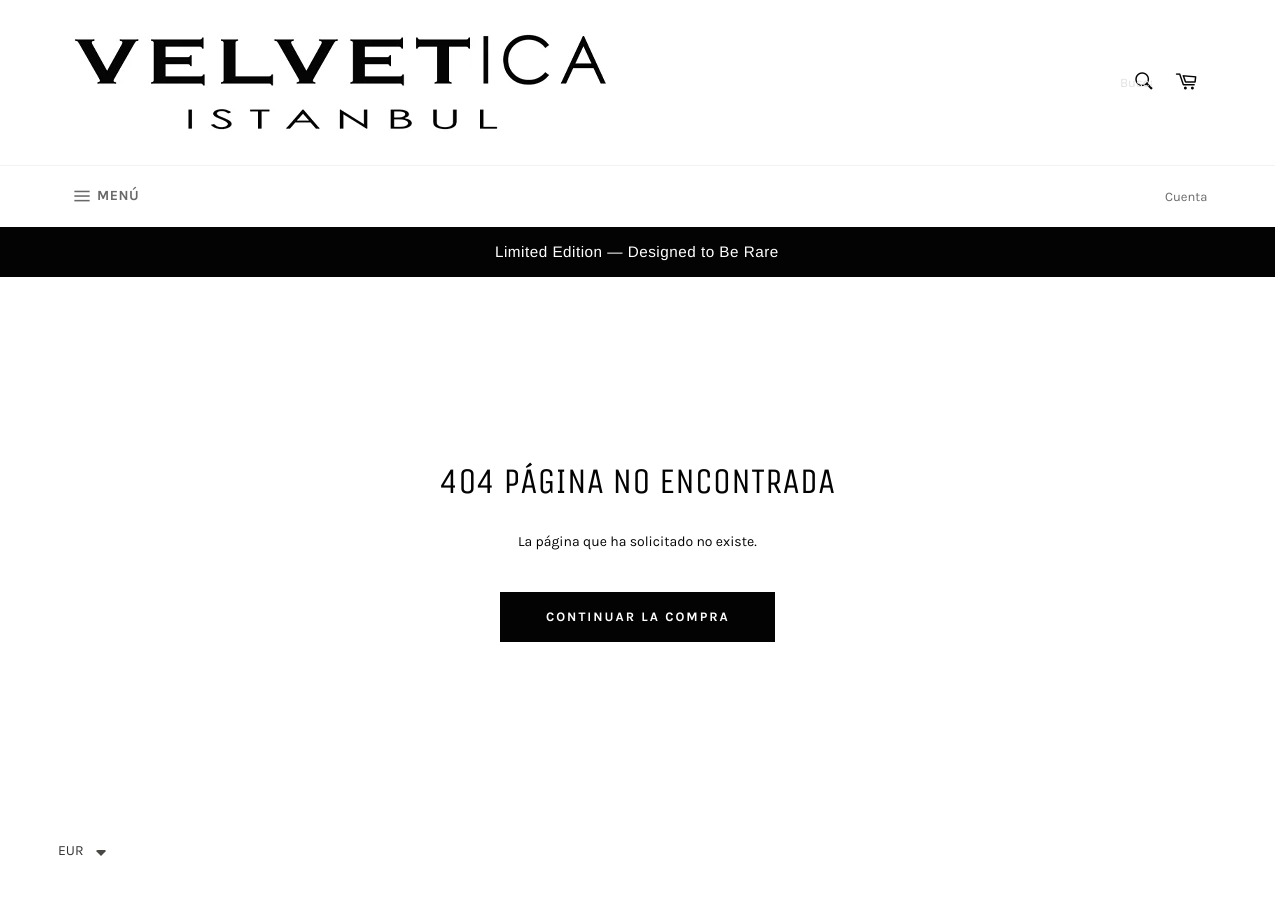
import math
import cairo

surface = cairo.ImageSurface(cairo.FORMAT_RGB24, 1275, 911)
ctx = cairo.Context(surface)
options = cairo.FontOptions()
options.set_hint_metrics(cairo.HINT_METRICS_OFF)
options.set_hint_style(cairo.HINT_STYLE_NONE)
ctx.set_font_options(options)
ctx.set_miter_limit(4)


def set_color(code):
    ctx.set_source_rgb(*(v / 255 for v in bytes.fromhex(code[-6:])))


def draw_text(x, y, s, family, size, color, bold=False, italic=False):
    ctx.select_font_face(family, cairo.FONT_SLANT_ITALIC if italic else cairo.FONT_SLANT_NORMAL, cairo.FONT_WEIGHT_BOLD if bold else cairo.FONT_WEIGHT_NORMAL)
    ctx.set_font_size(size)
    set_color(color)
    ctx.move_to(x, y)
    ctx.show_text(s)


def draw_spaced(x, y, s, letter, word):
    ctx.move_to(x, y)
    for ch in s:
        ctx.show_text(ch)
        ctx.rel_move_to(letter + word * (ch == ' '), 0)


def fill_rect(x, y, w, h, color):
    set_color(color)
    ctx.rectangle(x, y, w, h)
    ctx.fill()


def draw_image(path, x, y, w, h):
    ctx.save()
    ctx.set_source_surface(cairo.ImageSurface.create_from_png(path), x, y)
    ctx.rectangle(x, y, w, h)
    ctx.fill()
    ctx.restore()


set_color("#ffffff")
ctx.paint()
draw_image("assets/img1.png", 73, 34, 533, 98)
draw_image("assets/img2.png", 1135, 72, 18, 18)
ctx.save()
ctx.rectangle(1120, 75, 32, 15)
ctx.clip()
draw_text(1120, 87, "Busca", "Karla", 13, "#e1e1e1")
ctx.restore()
draw_image("assets/img3.png", 1175, 73, 22, 17)
fill_rect(0, 165, 1275, 1, "#f2f2f2")
draw_image("assets/img4.png", 74, 190, 16, 12)
ctx.select_font_face("Karla", cairo.FONT_SLANT_NORMAL, cairo.FONT_WEIGHT_BOLD)
ctx.set_font_size(14)
set_color("#686868")
draw_spaced(97, 200, "MENÚ", 0.5, 0)
draw_text(1165, 201, "Cuenta", "Karla", 13, "#686868")
fill_rect(0, 227, 1275, 50, "#030303")
ctx.select_font_face("Liberation Sans")
ctx.set_font_size(15.25)
set_color("#ffffff")
draw_spaced(495, 257, "Limited Edition — Designed to Be Rare", 0.5, 0)
draw_text(440, 493, "404 PÁGINA NO ENCONTRADA", "Unica One", 36, "#030303")
draw_text(518, 546, "La página que ha solicitado no existe.", "Karla", 14, "#030303")
fill_rect(500, 592, 275, 50, "#030303")
ctx.select_font_face("Karla", cairo.FONT_SLANT_NORMAL, cairo.FONT_WEIGHT_BOLD)
ctx.set_font_size(13)
set_color("#ffffff")
draw_spaced(546, 621, "CONTINUAR LA COMPRA", 2, 0)
draw_text(58, 855, "EUR", "Karla", 14, "#333333")
set_color("#474942")
ctx.new_path()
ctx.move_to(98, 850)
ctx.curve_to(97, 850, 96.5, 850.5, 96, 851)
ctx.line_to(101, 856)
ctx.line_to(106, 851)
ctx.line_to(105, 850)
ctx.close_path()
ctx.fill()
surface.write_to_png("output.png")
